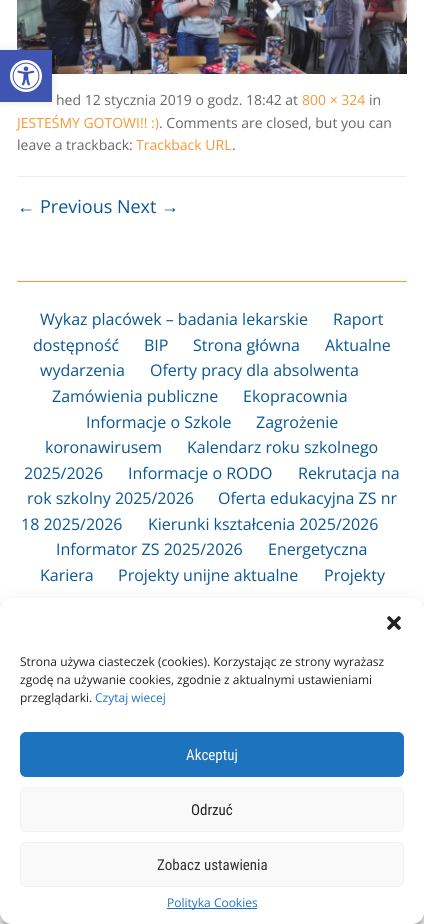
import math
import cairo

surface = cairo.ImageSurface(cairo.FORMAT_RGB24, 424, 924)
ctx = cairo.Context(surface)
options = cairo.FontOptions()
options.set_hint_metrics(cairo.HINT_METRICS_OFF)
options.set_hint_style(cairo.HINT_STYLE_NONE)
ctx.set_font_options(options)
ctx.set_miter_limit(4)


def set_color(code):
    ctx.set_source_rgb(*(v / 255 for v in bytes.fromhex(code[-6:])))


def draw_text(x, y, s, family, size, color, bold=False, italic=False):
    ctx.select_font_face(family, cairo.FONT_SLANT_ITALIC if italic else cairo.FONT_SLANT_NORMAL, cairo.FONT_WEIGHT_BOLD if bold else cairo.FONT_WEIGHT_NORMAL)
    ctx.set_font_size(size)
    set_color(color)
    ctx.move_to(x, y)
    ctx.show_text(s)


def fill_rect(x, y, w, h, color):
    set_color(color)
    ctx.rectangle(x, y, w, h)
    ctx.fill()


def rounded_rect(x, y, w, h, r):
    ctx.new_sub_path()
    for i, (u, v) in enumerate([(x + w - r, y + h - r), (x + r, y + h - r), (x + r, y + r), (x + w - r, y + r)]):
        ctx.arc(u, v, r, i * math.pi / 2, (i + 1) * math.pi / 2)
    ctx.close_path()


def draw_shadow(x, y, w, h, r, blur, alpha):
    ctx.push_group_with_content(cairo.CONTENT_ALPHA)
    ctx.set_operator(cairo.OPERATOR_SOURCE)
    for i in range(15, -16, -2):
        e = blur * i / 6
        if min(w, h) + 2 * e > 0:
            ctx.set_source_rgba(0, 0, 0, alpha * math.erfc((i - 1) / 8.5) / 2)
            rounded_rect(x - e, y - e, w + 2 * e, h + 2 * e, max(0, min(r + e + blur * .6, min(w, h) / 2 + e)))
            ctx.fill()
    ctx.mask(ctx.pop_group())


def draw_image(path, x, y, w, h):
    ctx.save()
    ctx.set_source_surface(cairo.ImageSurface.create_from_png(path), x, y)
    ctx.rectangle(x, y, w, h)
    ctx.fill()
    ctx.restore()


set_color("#ffffff")
ctx.paint()
draw_image("assets/img2.png", 17, 0, 390, 74)
set_color("#000000")
draw_shadow(0, 50, 52, 52, 0, 5, 0.1)
fill_rect(0, 50, 52, 52, "#4054b2")
draw_image("assets/img1.png", 10, 60, 32, 32)
fill_rect(17, 176, 390, 1, "#eeeeee")
draw_text(56, 105, "hed 12 stycznia 2019 o godz. 18:42 at", "Open Sans", 14, "#666666")
draw_text(302, 105, "800 × 324", "Open Sans", 14, "#f99734")
draw_text(369, 105, "in", "Open Sans", 14, "#666666")
draw_text(17, 128, "JESTEŚMY GOTOWI!! :)", "Open Sans", 14, "#f99734")
draw_text(159, 128, ". Comments are closed, but you can", "Open Sans", 14, "#666666")
draw_text(17, 150, "leave a trackback:", "Open Sans", 14, "#666666")
draw_text(136, 150, "Trackback URL", "Open Sans", 14, "#f99734")
draw_text(232, 150, ".", "Open Sans", 14, "#666666")
draw_text(17, 213, "←", "Liberation Sans", 18, "#0a5794")
draw_text(40, 213, "Previous Next", "Open Sans", 18, "#0a5794")
draw_text(161, 213, "→", "Liberation Sans", 18, "#0a5794")
fill_rect(17, 281, 390, 1, "#f99734")
draw_text(40, 325, "Wykaz placówek – badania lekarskie", "Open Sans", 16, "#0a5794")
draw_text(333, 325, "Raport", "Open Sans", 16, "#0a5794")
draw_text(33, 351, "dostępność", "Open Sans", 16, "#0a5794")
draw_text(144, 351, "BIP", "Open Sans", 16, "#0a5794")
draw_text(193, 351, "Strona główna", "Open Sans", 16, "#0a5794")
draw_text(325, 351, "Aktualne", "Open Sans", 16, "#0a5794")
draw_text(40, 376, "wydarzenia", "Open Sans", 16, "#0a5794")
draw_text(150, 376, "Oferty pracy dla absolwenta", "Open Sans", 16, "#0a5794")
draw_text(52, 402, "Zamówienia publiczne", "Open Sans", 16, "#0a5794")
draw_text(243, 402, "Ekopracownia", "Open Sans", 16, "#0a5794")
draw_text(86, 428, "Informacje o Szkole", "Open Sans", 16, "#0a5794")
draw_text(256, 428, "Zagrożenie", "Open Sans", 16, "#0a5794")
draw_text(45, 453, "koronawirusem", "Open Sans", 16, "#0a5794")
draw_text(187, 453, "Kalendarz roku szkolnego", "Open Sans", 16, "#0a5794")
draw_text(24, 479, "2025/2026", "Open Sans", 16, "#0a5794")
draw_text(128, 479, "Informacje o RODO", "Open Sans", 16, "#0a5794")
draw_text(298, 479, "Rekrutacja na", "Open Sans", 16, "#0a5794")
draw_text(27, 504, "rok szkolny 2025/2026", "Open Sans", 16, "#0a5794")
draw_text(218, 504, "Oferta edukacyjna ZS nr", "Open Sans", 16, "#0a5794")
draw_text(21, 530, "18 2025/2026", "Open Sans", 16, "#0a5794")
draw_text(148, 530, "Kierunki kształcenia 2025/2026", "Open Sans", 16, "#0a5794")
draw_text(56, 555, "Informator ZS 2025/2026", "Open Sans", 16, "#0a5794")
draw_text(268, 555, "Energetyczna", "Open Sans", 16, "#0a5794")
draw_text(40, 581, "Kariera", "Open Sans", 16, "#0a5794")
draw_text(118, 581, "Projekty unijne aktualne", "Open Sans", 16, "#0a5794")
draw_text(324, 581, "Projekty", "Open Sans", 16, "#0a5794")
set_color("#000000")
draw_shadow(0, 604, 424, 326, 12, 3, 0.23)
draw_shadow(0, 608, 424, 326, 12, 10, 0.19)
set_color("#ffffff")
rounded_rect(0, 598, 424, 326, 12)
ctx.fill()
draw_image("assets/img3.png", 387, 616, 14, 14)
draw_text(20, 666, "Strona używa ciasteczek (cookies). Korzystając ze strony wyrażasz", "Open Sans", 12, "#222222")
draw_text(20, 684, "zgodę na używanie cookies, zgodnie z aktualnymi ustawieniami", "Open Sans", 12, "#222222")
draw_text(20, 702, "przeglądarki.", "Open Sans", 12, "#222222")
draw_text(95, 702, "Czytaj wiecej", "Open Sans", 12, "#1e73be")
rounded_rect(20.5, 732.5, 383, 44, 5.5)
ctx.fill_preserve()
ctx.set_line_width(1)
ctx.stroke()
draw_text(186, 760, "Akceptuj", "Roboto Condensed", 15, "#ffffff")
set_color("#f9f9f9")
rounded_rect(20.5, 787.5, 383, 44, 5.5)
ctx.fill_preserve()
set_color("#f2f2f2")
ctx.stroke()
draw_text(191, 815, "Odrzuć", "Roboto Condensed", 15, "#222222")
set_color("#f9f9f9")
rounded_rect(20.5, 842.5, 383, 44, 5.5)
ctx.fill_preserve()
set_color("#f2f2f2")
ctx.stroke()
draw_text(157, 870, "Zobacz ustawienia", "Roboto Condensed", 15, "#333333")
fill_rect(167, 908, 90, 1, "#1e73be")
draw_text(167, 907, "Polityka Cookies", "Open Sans", 12, "#1e73be")
surface.write_to_png("output.png")
